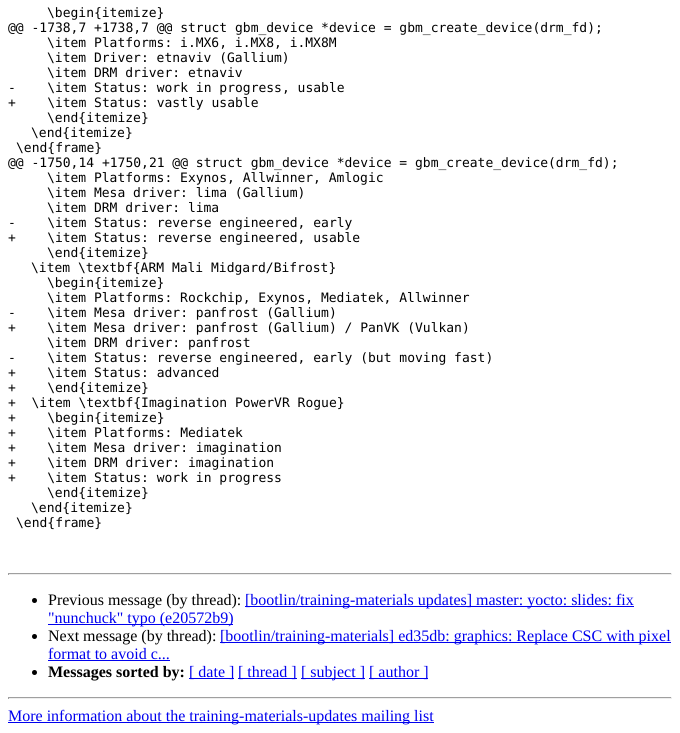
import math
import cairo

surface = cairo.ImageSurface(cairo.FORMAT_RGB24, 680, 733)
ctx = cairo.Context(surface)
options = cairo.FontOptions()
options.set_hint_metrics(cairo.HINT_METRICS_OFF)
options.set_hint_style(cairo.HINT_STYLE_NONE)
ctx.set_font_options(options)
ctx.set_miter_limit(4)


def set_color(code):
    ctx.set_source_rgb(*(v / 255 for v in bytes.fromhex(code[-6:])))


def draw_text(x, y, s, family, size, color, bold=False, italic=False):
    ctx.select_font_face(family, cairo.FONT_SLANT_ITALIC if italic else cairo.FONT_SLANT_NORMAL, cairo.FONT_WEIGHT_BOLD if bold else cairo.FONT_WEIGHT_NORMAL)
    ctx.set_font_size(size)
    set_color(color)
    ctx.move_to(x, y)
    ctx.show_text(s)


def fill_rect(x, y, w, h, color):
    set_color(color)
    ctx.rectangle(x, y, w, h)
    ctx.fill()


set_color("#ffffff")
ctx.paint()
draw_text(47, 17, "\\begin{itemize}", "DejaVu Sans Mono", 13, "#000000")
draw_text(8, 32, "@@ -1738,7 +1738,7 @@ struct gbm_device *device = gbm_create_device(drm_fd);", "DejaVu Sans Mono", 13, "#000000")
draw_text(47, 47, "\\item Platforms: i.MX6, i.MX8, i.MX8M", "DejaVu Sans Mono", 13, "#000000")
draw_text(47, 62, "\\item Driver: etnaviv (Gallium)", "DejaVu Sans Mono", 13, "#000000")
draw_text(47, 77, "\\item DRM driver: etnaviv", "DejaVu Sans Mono", 13, "#000000")
draw_text(8, 92, "-    \\item Status: work in progress, usable", "DejaVu Sans Mono", 13, "#000000")
draw_text(8, 107, "+    \\item Status: vastly usable", "DejaVu Sans Mono", 13, "#000000")
draw_text(47, 122, "\\end{itemize}", "DejaVu Sans Mono", 13, "#000000")
draw_text(31, 137, "\\end{itemize}", "DejaVu Sans Mono", 13, "#000000")
draw_text(16, 152, "\\end{frame}", "DejaVu Sans Mono", 13, "#000000")
draw_text(8, 167, "@@ -1750,14 +1750,21 @@ struct gbm_device *device = gbm_create_device(drm_fd);", "DejaVu Sans Mono", 13, "#000000")
draw_text(47, 182, "\\item Platforms: Exynos, Allwinner, Amlogic", "DejaVu Sans Mono", 13, "#000000")
draw_text(47, 197, "\\item Mesa driver: lima (Gallium)", "DejaVu Sans Mono", 13, "#000000")
draw_text(47, 212, "\\item DRM driver: lima", "DejaVu Sans Mono", 13, "#000000")
draw_text(8, 227, "-    \\item Status: reverse engineered, early", "DejaVu Sans Mono", 13, "#000000")
draw_text(8, 242, "+    \\item Status: reverse engineered, usable", "DejaVu Sans Mono", 13, "#000000")
draw_text(47, 257, "\\end{itemize}", "DejaVu Sans Mono", 13, "#000000")
draw_text(31, 272, "\\item \\textbf{ARM Mali Midgard/Bifrost}", "DejaVu Sans Mono", 13, "#000000")
draw_text(47, 287, "\\begin{itemize}", "DejaVu Sans Mono", 13, "#000000")
draw_text(47, 302, "\\item Platforms: Rockchip, Exynos, Mediatek, Allwinner", "DejaVu Sans Mono", 13, "#000000")
draw_text(8, 317, "-    \\item Mesa driver: panfrost (Gallium)", "DejaVu Sans Mono", 13, "#000000")
draw_text(8, 332, "+    \\item Mesa driver: panfrost (Gallium) / PanVK (Vulkan)", "DejaVu Sans Mono", 13, "#000000")
draw_text(47, 347, "\\item DRM driver: panfrost", "DejaVu Sans Mono", 13, "#000000")
draw_text(8, 362, "-    \\item Status: reverse engineered, early (but moving fast)", "DejaVu Sans Mono", 13, "#000000")
draw_text(8, 377, "+    \\item Status: advanced", "DejaVu Sans Mono", 13, "#000000")
draw_text(8, 392, "+    \\end{itemize}", "DejaVu Sans Mono", 13, "#000000")
draw_text(8, 407, "+  \\item \\textbf{Imagination PowerVR Rogue}", "DejaVu Sans Mono", 13, "#000000")
draw_text(8, 422, "+    \\begin{itemize}", "DejaVu Sans Mono", 13, "#000000")
draw_text(8, 437, "+    \\item Platforms: Mediatek", "DejaVu Sans Mono", 13, "#000000")
draw_text(8, 452, "+    \\item Mesa driver: imagination", "DejaVu Sans Mono", 13, "#000000")
draw_text(8, 467, "+    \\item DRM driver: imagination", "DejaVu Sans Mono", 13, "#000000")
draw_text(8, 482, "+    \\item Status: work in progress", "DejaVu Sans Mono", 13, "#000000")
draw_text(47, 497, "\\end{itemize}", "DejaVu Sans Mono", 13, "#000000")
draw_text(31, 512, "\\end{itemize}", "DejaVu Sans Mono", 13, "#000000")
draw_text(16, 527, "\\end{frame}", "DejaVu Sans Mono", 13, "#000000")
fill_rect(8, 573, 664, 1, "#9f9f9f")
fill_rect(671, 573, 1, 2, "#eeeeee")
fill_rect(8, 574, 664, 1, "#eeeeee")
fill_rect(8, 573, 1, 2, "#9f9f9f")
set_color("#000000")
ctx.new_path()
ctx.arc(34.5, 600.5, 2.5, 0, 2 * math.pi)
ctx.fill()
draw_text(48, 605, "Previous message (by thread):", "Liberation Serif", 16, "#000000")
fill_rect(245, 606, 389, 1, "#0000ee")
draw_text(245, 605, "[bootlin/training-materials updates] master: yocto: slides: fix", "Liberation Serif", 16, "#0000ee")
fill_rect(48, 624, 185, 1, "#0000ee")
draw_text(48, 623, "\"nunchuck\" typo (e20572b9)", "Liberation Serif", 16, "#0000ee")
set_color("#000000")
ctx.new_path()
ctx.arc(34.5, 636.5, 2.5, 0, 2 * math.pi)
ctx.fill()
draw_text(48, 641, "Next message (by thread):", "Liberation Serif", 16, "#000000")
fill_rect(220, 642, 451, 1, "#0000ee")
draw_text(220, 641, "[bootlin/training-materials] ed35db: graphics: Replace CSC with pixel", "Liberation Serif", 16, "#0000ee")
draw_text(48, 659, "format to avoid c...", "Liberation Serif", 16, "#0000ee")
fill_rect(48, 660, 122, 1, "#0000ee")
set_color("#000000")
ctx.new_path()
ctx.arc(34.5, 672.5, 2.5, 0, 2 * math.pi)
ctx.fill()
draw_text(48, 677, "Messages sorted by:", "Liberation Serif", 16, "#000000", bold=True)
fill_rect(189, 678, 45, 1, "#0000ee")
draw_text(189, 677, "[ date ]", "Liberation Serif", 16, "#0000ee")
fill_rect(238, 678, 59, 1, "#0000ee")
draw_text(238, 677, "[ thread ]", "Liberation Serif", 16, "#0000ee")
fill_rect(301, 678, 64, 1, "#0000ee")
draw_text(301, 677, "[ subject ]", "Liberation Serif", 16, "#0000ee")
fill_rect(369, 678, 59, 1, "#0000ee")
draw_text(369, 677, "[ author ]", "Liberation Serif", 16, "#0000ee")
fill_rect(8, 697, 664, 1, "#9f9f9f")
fill_rect(671, 697, 1, 2, "#eeeeee")
fill_rect(8, 698, 664, 1, "#eeeeee")
fill_rect(8, 697, 1, 2, "#9f9f9f")
fill_rect(8, 722, 426, 1, "#0000ee")
draw_text(8, 721, "More information about the training-materials-updates mailing list", "Liberation Serif", 16, "#0000ee")
surface.write_to_png("output.png")
